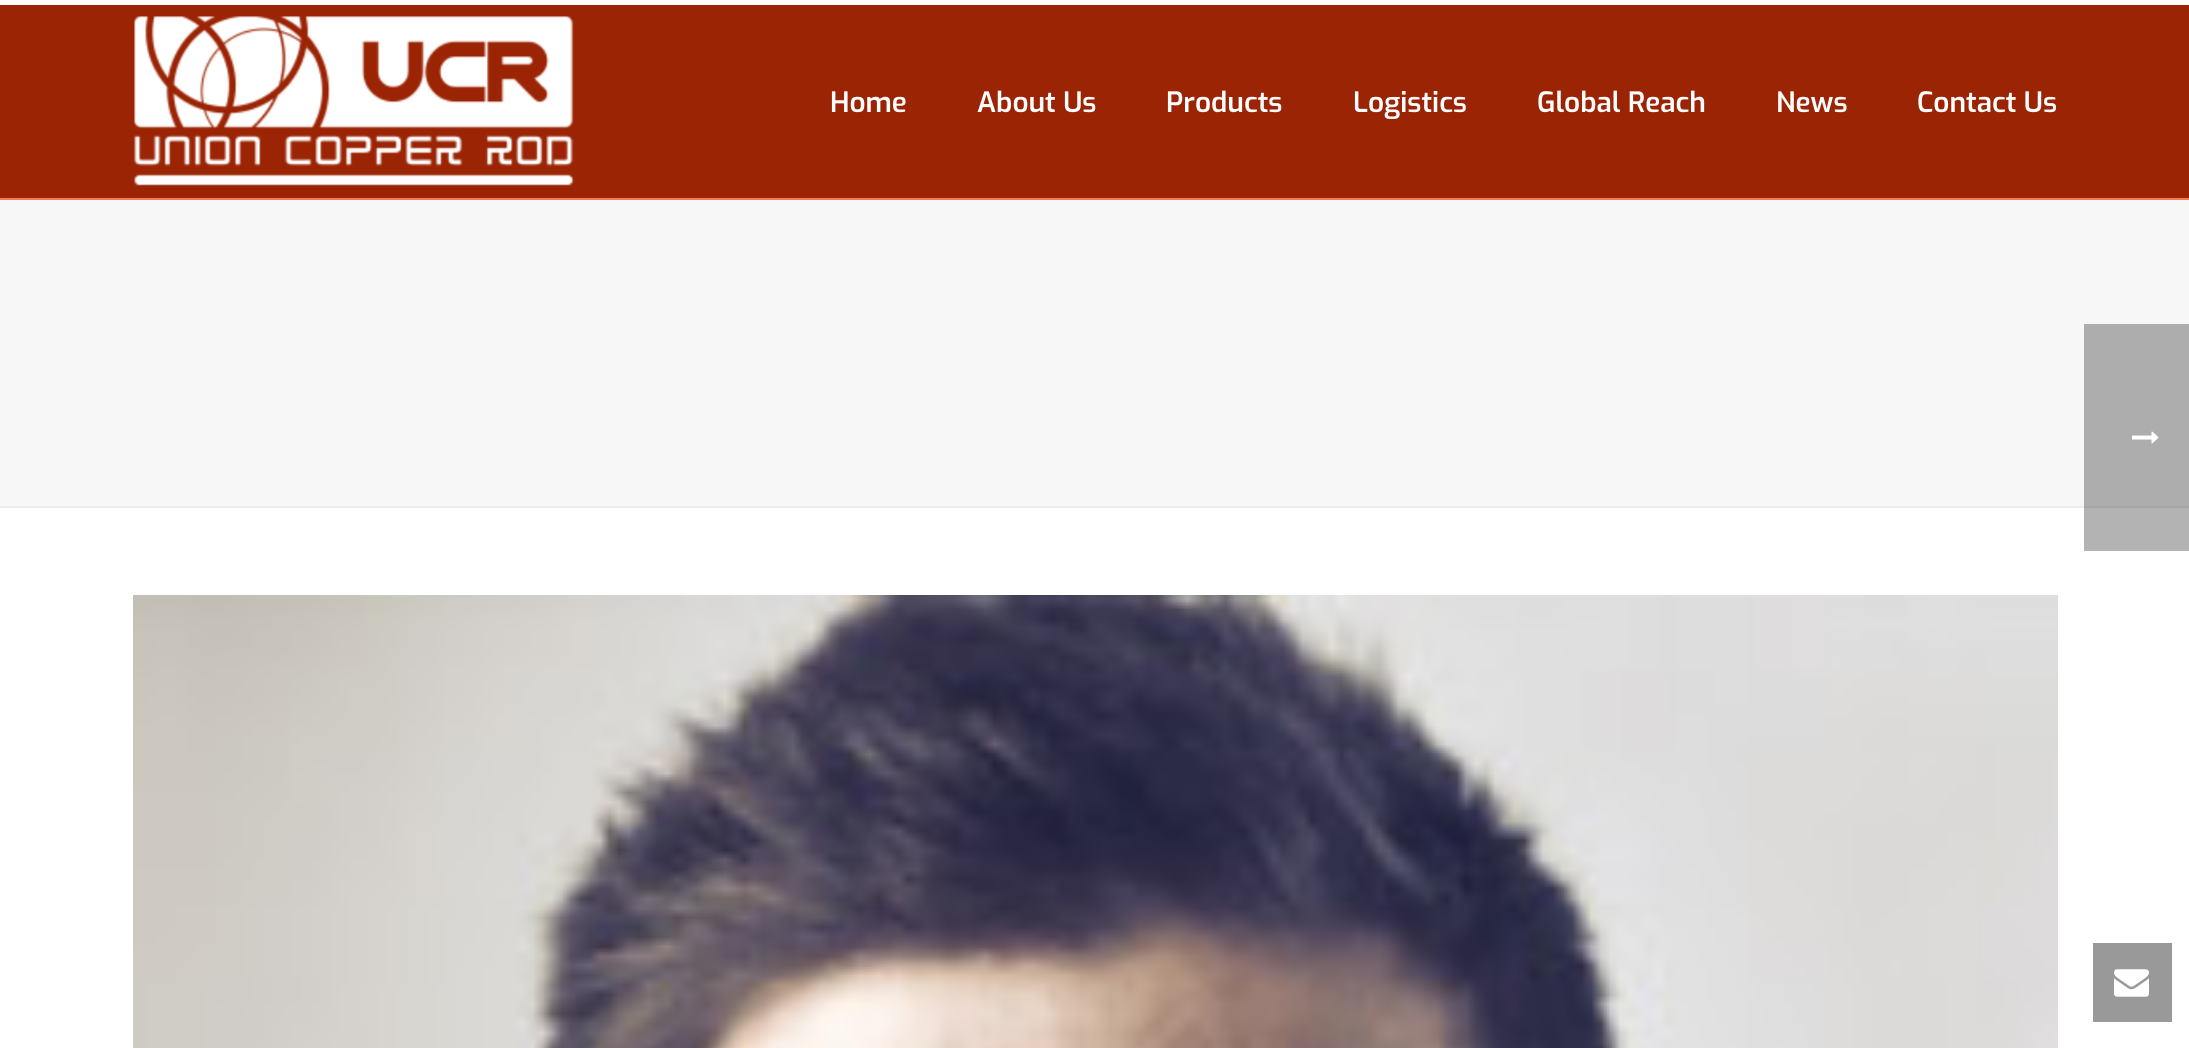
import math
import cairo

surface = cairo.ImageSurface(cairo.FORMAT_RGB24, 2189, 1048)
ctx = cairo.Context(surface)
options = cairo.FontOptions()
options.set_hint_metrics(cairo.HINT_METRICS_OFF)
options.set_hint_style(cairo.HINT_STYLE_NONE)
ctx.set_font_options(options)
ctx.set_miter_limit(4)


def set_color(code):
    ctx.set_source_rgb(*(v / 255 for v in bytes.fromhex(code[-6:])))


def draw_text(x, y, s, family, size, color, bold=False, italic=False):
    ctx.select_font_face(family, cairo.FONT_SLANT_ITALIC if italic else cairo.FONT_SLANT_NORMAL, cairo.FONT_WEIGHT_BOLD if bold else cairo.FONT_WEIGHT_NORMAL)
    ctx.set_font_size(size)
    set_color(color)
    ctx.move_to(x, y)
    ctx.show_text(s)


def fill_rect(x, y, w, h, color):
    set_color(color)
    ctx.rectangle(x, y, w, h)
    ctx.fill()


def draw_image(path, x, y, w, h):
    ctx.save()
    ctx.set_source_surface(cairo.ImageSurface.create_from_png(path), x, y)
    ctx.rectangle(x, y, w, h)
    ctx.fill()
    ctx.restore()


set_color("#ffffff")
ctx.paint()
fill_rect(2084, 508, 105, 43, "#b3b3b3")
fill_rect(0, 200, 2189, 306, "#f7f7f7")
fill_rect(2084, 324, 105, 182, "#adadad")
fill_rect(0, 506, 2084, 2, "#ededed")
fill_rect(2084, 506, 105, 2, "#a6a6a6")
fill_rect(0, 198, 2189, 2, "#f97a58")
fill_rect(0, 5, 2189, 193, "#9b2405")
draw_image("assets/img1.png", 134, 16, 440, 170)
draw_text(830, 112, "Home", "Exo SemiBold", 28, "#ffffff")
draw_text(977, 112, "About Us", "Exo SemiBold", 28, "#ffffff")
draw_text(1166, 112, "Products", "Exo SemiBold", 28, "#ffffff")
draw_text(1353, 112, "Logistics", "Exo SemiBold", 28, "#ffffff")
draw_text(1537, 112, "Global Reach", "Exo SemiBold", 28, "#ffffff")
draw_text(1776, 112, "News", "Exo SemiBold", 28, "#ffffff")
draw_text(1917, 112, "Contact Us", "Exo SemiBold", 28, "#ffffff")
draw_image("assets/img2.png", 133, 595, 1925, 453)
draw_image("assets/img3.png", 2132, 431, 27, 13)
fill_rect(2093, 943, 79, 79, "#999999")
draw_image("assets/img4.png", 2114, 969, 35, 28)
surface.write_to_png("output.png")
